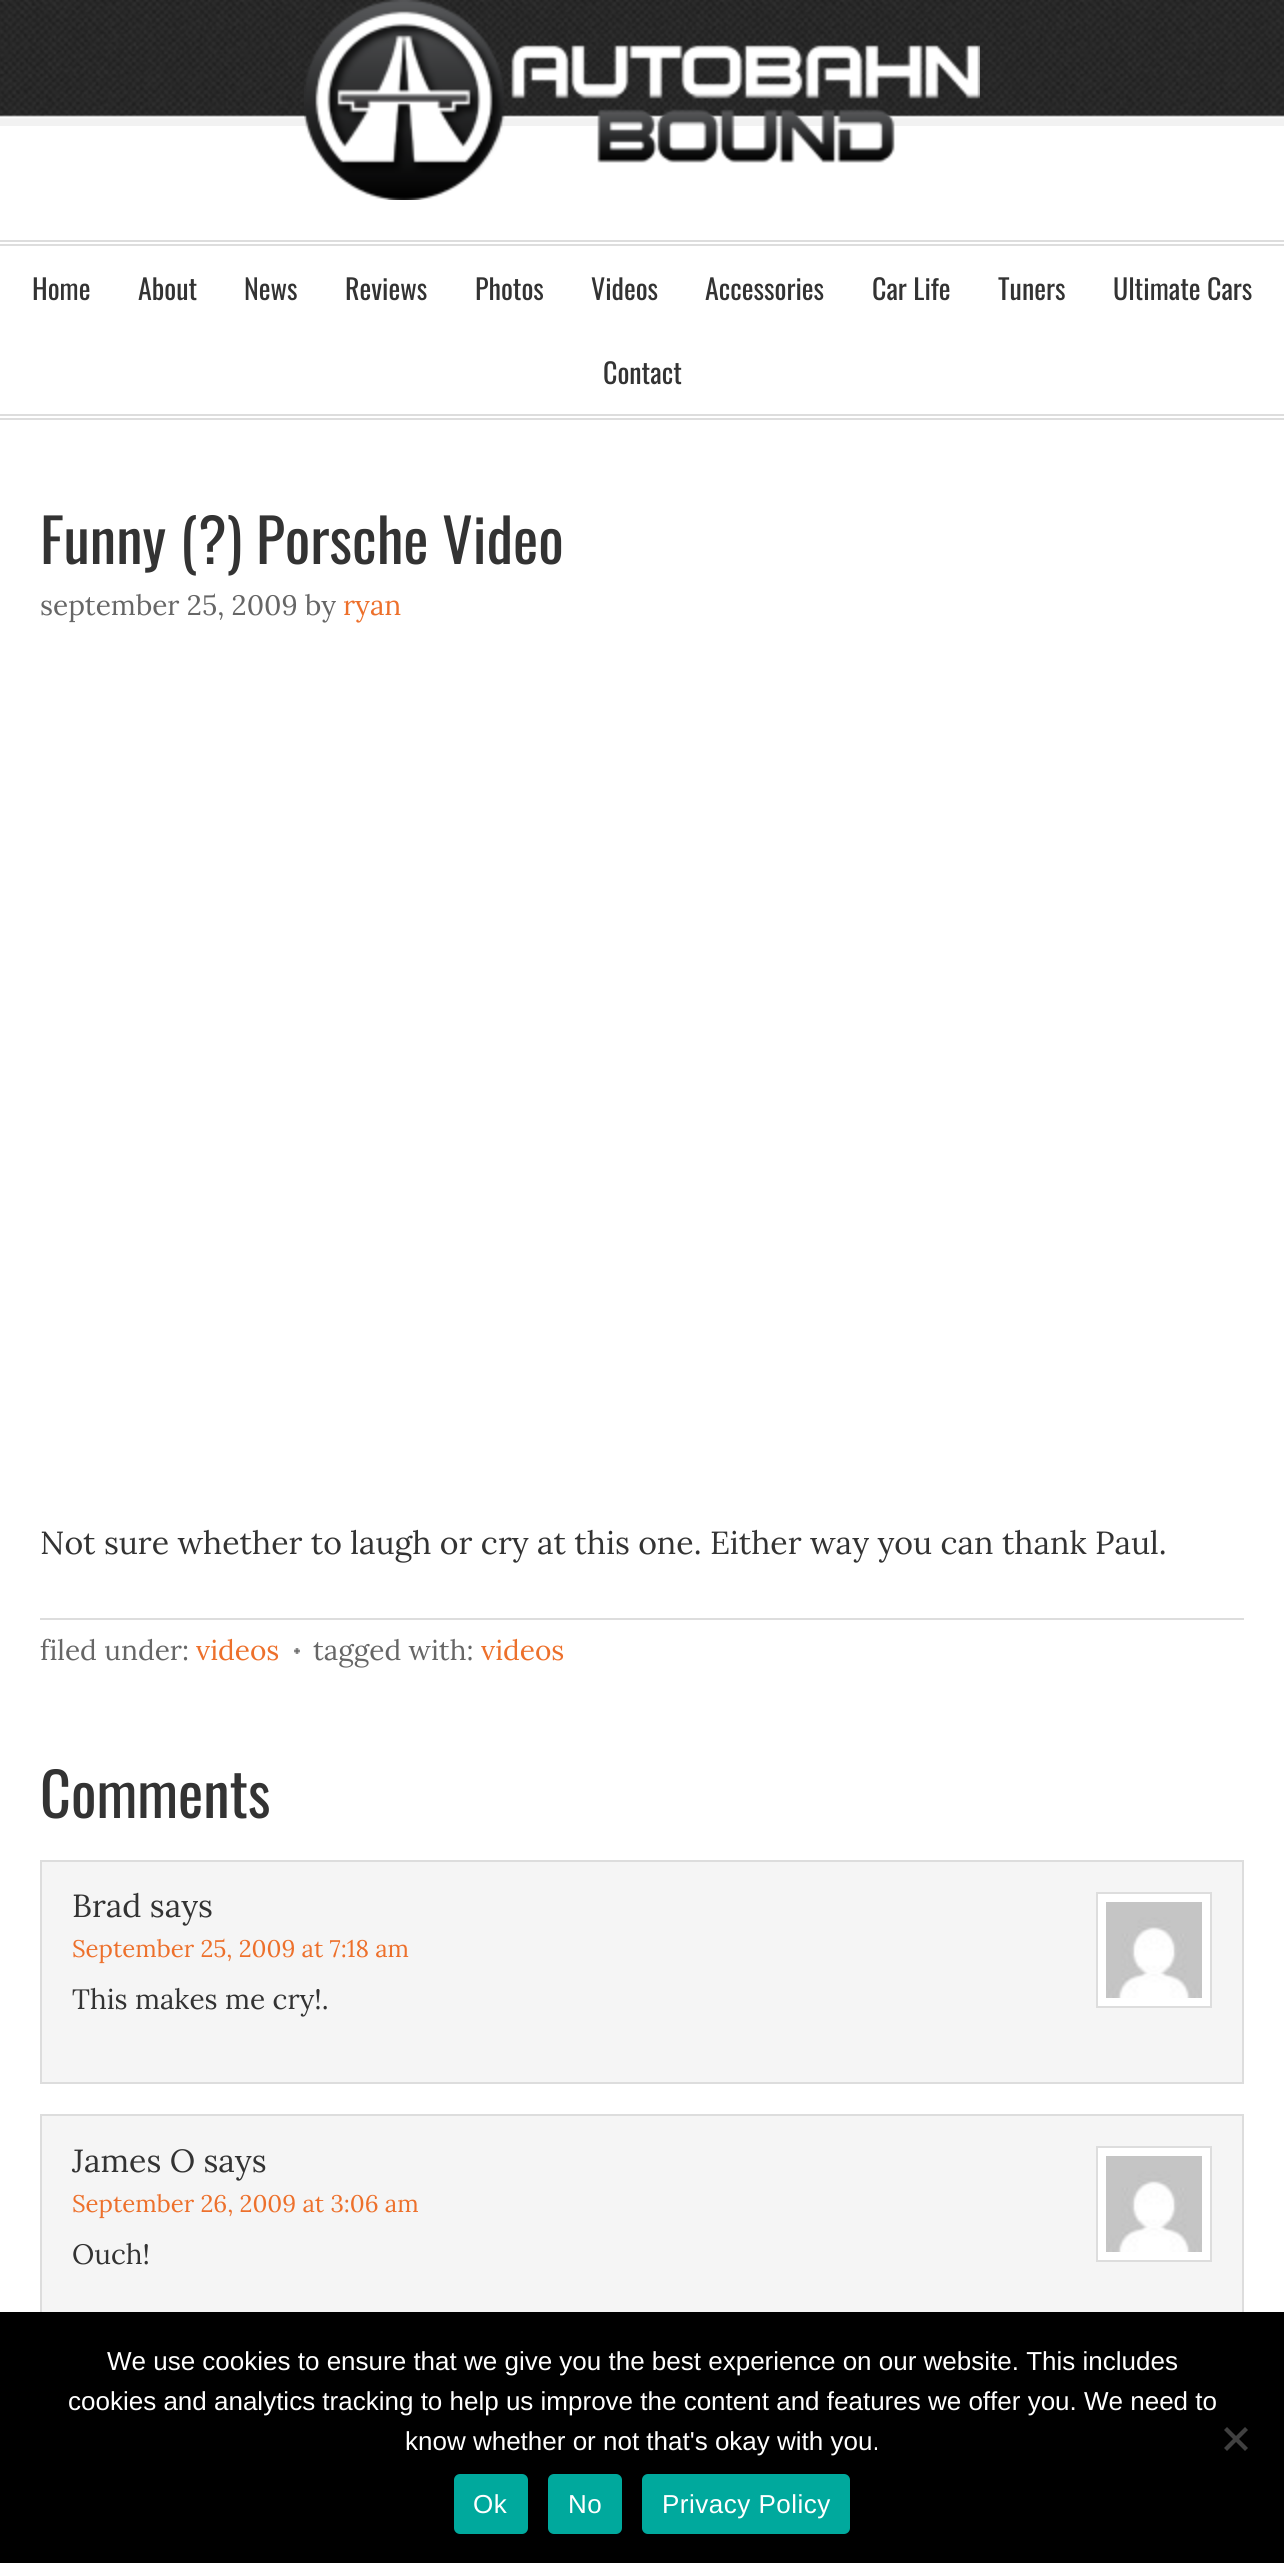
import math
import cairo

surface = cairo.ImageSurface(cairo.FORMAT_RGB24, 1284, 2563)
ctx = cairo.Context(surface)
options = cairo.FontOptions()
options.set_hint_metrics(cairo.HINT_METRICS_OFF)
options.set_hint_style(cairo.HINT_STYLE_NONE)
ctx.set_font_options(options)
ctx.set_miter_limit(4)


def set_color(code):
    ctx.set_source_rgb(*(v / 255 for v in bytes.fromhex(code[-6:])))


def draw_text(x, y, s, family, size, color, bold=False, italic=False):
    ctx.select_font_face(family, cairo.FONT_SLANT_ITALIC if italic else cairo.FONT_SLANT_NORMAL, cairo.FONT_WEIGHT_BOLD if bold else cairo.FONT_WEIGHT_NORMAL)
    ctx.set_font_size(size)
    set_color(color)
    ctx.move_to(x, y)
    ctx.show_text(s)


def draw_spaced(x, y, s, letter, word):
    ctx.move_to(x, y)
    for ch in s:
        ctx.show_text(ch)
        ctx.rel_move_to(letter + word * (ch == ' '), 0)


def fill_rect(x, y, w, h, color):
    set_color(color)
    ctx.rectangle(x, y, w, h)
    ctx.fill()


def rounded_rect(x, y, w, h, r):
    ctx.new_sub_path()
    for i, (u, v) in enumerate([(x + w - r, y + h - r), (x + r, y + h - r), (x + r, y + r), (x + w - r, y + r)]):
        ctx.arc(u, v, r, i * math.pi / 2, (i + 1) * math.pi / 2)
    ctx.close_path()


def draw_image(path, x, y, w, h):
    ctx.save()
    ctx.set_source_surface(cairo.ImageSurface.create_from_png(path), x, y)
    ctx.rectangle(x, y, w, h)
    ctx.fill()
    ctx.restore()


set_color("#ffffff")
ctx.paint()
draw_image("assets/img1.png", 0, 0, 1284, 126)
draw_image("assets/img2.png", 304, 0, 676, 200)
fill_rect(0, 240, 1284, 2, "#dddddd")
fill_rect(0, 244, 1284, 2, "#dddddd")
fill_rect(0, 414, 1284, 2, "#dddddd")
fill_rect(0, 418, 1284, 2, "#dddddd")
draw_text(32, 300, "Home", "Oswald", 28, "#333333")
draw_text(138, 300, "About", "Oswald", 28, "#333333")
draw_text(244, 300, "News", "Oswald", 28, "#333333")
draw_text(345, 300, "Reviews", "Oswald", 28, "#333333")
draw_text(475, 300, "Photos", "Oswald", 28, "#333333")
draw_text(591, 300, "Videos", "Oswald", 28, "#333333")
draw_text(705, 300, "Accessories", "Oswald", 28, "#333333")
draw_text(872, 300, "Car Life", "Oswald", 28, "#333333")
draw_text(998, 300, "Tuners", "Oswald", 28, "#333333")
draw_text(1113, 300, "Ultimate Cars", "Oswald", 28, "#333333")
draw_text(603, 384, "Contact", "Oswald", 28, "#333333")
draw_text(40, 564, "Funny (?) Porsche Video", "Oswald", 60, "#333333")
draw_text(40, 615, "september 25, 2009 by", "Lora", 28, "#666666")
draw_text(343, 615, "ryan", "Lora", 28, "#ed702b")
draw_text(40, 1554, "Not sure whether to laugh or cry at this one. Either way you can thank Paul.", "Lora", 32, "#333333")
fill_rect(40, 1618, 1204, 2, "#dddddd")
draw_text(40, 1660, "filed under:", "Lora", 28, "#666666")
draw_text(196, 1660, "videos", "Lora", 28, "#ed702b")
draw_image("assets/img3.png", 294, 1648, 6, 6)
draw_text(313, 1660, "tagged with:", "Lora", 28, "#666666")
draw_text(481, 1660, "videos", "Lora", 28, "#ed702b")
draw_text(40, 1818, "Comments", "Oswald", 60, "#333333")
set_color("#f5f5f5")
ctx.rectangle(41, 1861, 1202, 222)
ctx.fill_preserve()
set_color("#dddddd")
ctx.stroke()
draw_text(72, 1917, "Brad says", "Lora", 32, "#333333")
set_color("#ffffff")
ctx.rectangle(1097, 1893, 114, 114)
ctx.fill_preserve()
set_color("#dddddd")
ctx.stroke()
draw_image("assets/img4.png", 1106, 1902, 96, 96)
draw_text(72, 1957, "September 25, 2009 at 7:18 am", "Lora", 24, "#ed702b")
draw_text(72, 2009, "This makes me cry!.", "Lora", 28, "#333333")
fill_rect(42, 2116, 1200, 196, "#f5f5f5")
ctx.rectangle(41, 2115, 1202, 224)
set_color("#dddddd")
ctx.stroke()
draw_text(72, 2172, "James O says", "Lora", 32, "#333333")
set_color("#ffffff")
ctx.rectangle(1097, 2147, 114, 114)
ctx.fill_preserve()
set_color("#dddddd")
ctx.stroke()
draw_image("assets/img4.png", 1106, 2156, 96, 96)
draw_text(72, 2212, "September 26, 2009 at 3:06 am", "Lora", 24, "#ed702b")
draw_text(72, 2264, "Ouch!", "Lora", 28, "#333333")
fill_rect(0, 2312, 1284, 251, "#000000")
draw_text(107, 2370, "We use cookies to ensure that we give you the best experience on our website. This includes", "Liberation Sans", 26, "#ffffff")
draw_text(68, 2410, "cookies and analytics tracking to help us improve the content and features we offer you. We need to", "Liberation Sans", 26, "#ffffff")
draw_text(405, 2450, "know whether or not that's okay with you.", "Liberation Sans", 26, "#ffffff")
set_color("#404040")
ctx.new_path()
ctx.move_to(1245, 2427)
ctx.line_to(1248, 2430)
ctx.line_to(1227, 2451)
ctx.line_to(1224, 2448)
ctx.close_path()
ctx.fill()
ctx.new_path()
ctx.move_to(1224, 2430)
ctx.line_to(1227, 2427)
ctx.line_to(1248, 2448)
ctx.line_to(1245, 2451)
ctx.close_path()
ctx.fill()
set_color("#00a99d")
rounded_rect(454, 2474, 74, 60, 6)
ctx.fill()
set_color("#ffffff")
draw_spaced(473, 2513, "Ok", 0.5, 0)
set_color("#00a99d")
rounded_rect(548, 2474, 74, 60, 6)
ctx.fill()
set_color("#ffffff")
draw_spaced(568, 2513, "No", 0.5, 0)
set_color("#00a99d")
rounded_rect(642, 2474, 208, 60, 6)
ctx.fill()
set_color("#ffffff")
draw_spaced(662, 2513, "Privacy Policy", 0.5, 0)
surface.write_to_png("output.png")
